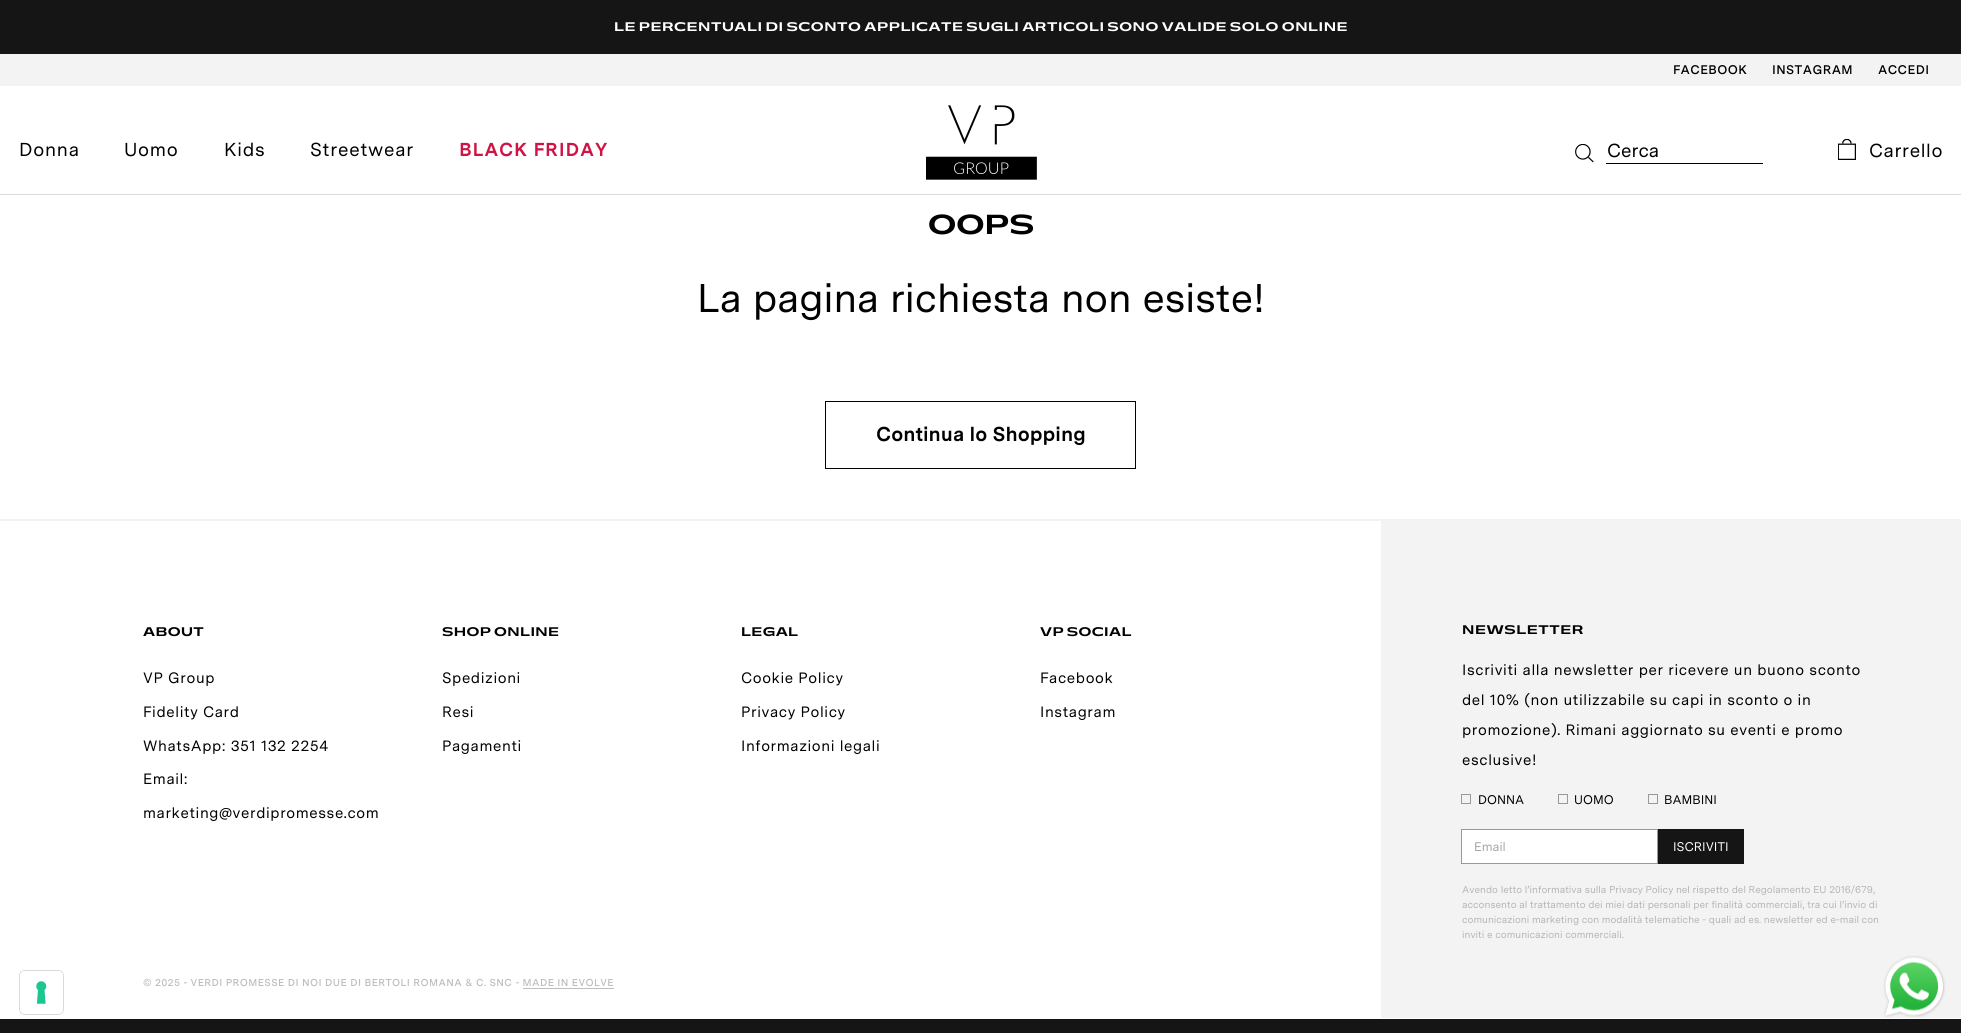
import math
import cairo

surface = cairo.ImageSurface(cairo.FORMAT_RGB24, 1961, 1033)
ctx = cairo.Context(surface)
options = cairo.FontOptions()
options.set_hint_metrics(cairo.HINT_METRICS_OFF)
options.set_hint_style(cairo.HINT_STYLE_NONE)
ctx.set_font_options(options)
ctx.set_miter_limit(4)


def set_color(code):
    ctx.set_source_rgb(*(v / 255 for v in bytes.fromhex(code[-6:])))


def draw_text(x, y, s, family, size, color, bold=False, italic=False):
    ctx.select_font_face(family, cairo.FONT_SLANT_ITALIC if italic else cairo.FONT_SLANT_NORMAL, cairo.FONT_WEIGHT_BOLD if bold else cairo.FONT_WEIGHT_NORMAL)
    ctx.set_font_size(size)
    set_color(color)
    ctx.move_to(x, y)
    ctx.show_text(s)


def draw_spaced(x, y, s, letter, word):
    ctx.move_to(x, y)
    for ch in s:
        ctx.show_text(ch)
        ctx.rel_move_to(letter + word * (ch == ' '), 0)


def fill_rect(x, y, w, h, color):
    set_color(color)
    ctx.rectangle(x, y, w, h)
    ctx.fill()


def rounded_rect(x, y, w, h, r):
    ctx.new_sub_path()
    for i, (u, v) in enumerate([(x + w - r, y + h - r), (x + r, y + h - r), (x + r, y + r), (x + w - r, y + r)]):
        ctx.arc(u, v, r, i * math.pi / 2, (i + 1) * math.pi / 2)
    ctx.close_path()


def draw_image(path, x, y, w, h):
    ctx.save()
    ctx.set_source_surface(cairo.ImageSurface.create_from_png(path), x, y)
    ctx.rectangle(x, y, w, h)
    ctx.fill()
    ctx.restore()


set_color("#ffffff")
ctx.paint()
fill_rect(0, 194, 1961, 1, "#dbdbdb")
fill_rect(0, 0, 1961, 54, "#151515")
ctx.select_font_face("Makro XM", cairo.FONT_SLANT_NORMAL, cairo.FONT_WEIGHT_BOLD)
ctx.set_font_size(12.5)
set_color("#ffffff")
draw_spaced(614, 31, "LE PERCENTUALI DI SCONTO APPLICATE SUGLI ARTICOLI SONO VALIDE SOLO ONLINE", 0.55, 0)
fill_rect(0, 54, 1961, 32, "#f3f3f3")
ctx.select_font_face("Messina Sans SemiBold")
set_color("#000000")
draw_spaced(1673, 74, "FACEBOOK", 0.4, 0)
draw_spaced(1772, 74, "INSTAGRAM", 0.4, 0)
draw_spaced(1878, 74, "ACCEDI", 0.4, 0)
ctx.select_font_face("Messina Sans")
ctx.set_font_size(18.75)
draw_spaced(19, 156, "Donna", 0.75, 0)
draw_spaced(124, 156, "Uomo", 0.75, 0)
draw_spaced(224, 156, "Kids", 0.75, 0)
draw_spaced(310, 156, "Streetwear", 0.75, 0)
ctx.select_font_face("Messina Sans", cairo.FONT_SLANT_NORMAL, cairo.FONT_WEIGHT_BOLD)
set_color("#d01345")
draw_spaced(459, 156, "BLACK FRIDAY", 0.75, 0)
draw_image("assets/img1.png", 926, 105, 111, 75)
draw_image("assets/img2.png", 1575, 144, 19, 19)
fill_rect(1606, 163, 157, 1, "#000000")
draw_text(1607, 157, "Cerca", "Messina Sans", 18.75, "#000000")
draw_image("assets/img3.png", 1838, 139, 18, 21)
draw_spaced(1869, 157, "Carrello", 0.6, 0)
draw_text(928, 234, "OOPS", "Makro XM", 27.5, "#000000", bold=True)
draw_text(697, 312, "La pagina richiesta non esiste!", "Messina Sans", 40, "#000000")
ctx.rectangle(825.5, 401.5, 310, 67)
ctx.set_line_width(1)
ctx.stroke()
draw_text(876, 441, "Continua lo Shopping", "Messina Sans", 20, "#000000", bold=True)
fill_rect(0, 519, 1961, 2, "#f3f3f3")
ctx.select_font_face("Makro XM", cairo.FONT_SLANT_NORMAL, cairo.FONT_WEIGHT_BOLD)
ctx.set_font_size(12.5)
set_color("#000000")
draw_spaced(143, 636, "ABOUT", 0.4, 0)
ctx.select_font_face("Messina Sans")
ctx.set_font_size(15)
draw_spaced(143, 683, "VP Group", 0.6, 0)
draw_spaced(143, 717, "Fidelity Card", 0.6, 0)
draw_spaced(143, 751, "WhatsApp: 351 132 2254", 0.6, 0)
draw_spaced(143, 784, "Email:", 0.6, 0)
draw_spaced(143, 818, "marketing@verdipromesse.com", 0.6, 0)
ctx.select_font_face("Makro XM", cairo.FONT_SLANT_NORMAL, cairo.FONT_WEIGHT_BOLD)
ctx.set_font_size(12.5)
draw_spaced(442, 636, "SHOP ONLINE", 0.4, 0)
ctx.select_font_face("Messina Sans")
ctx.set_font_size(15)
draw_spaced(442, 683, "Spedizioni", 0.6, 0)
draw_spaced(442, 717, "Resi", 0.6, 0)
draw_spaced(442, 751, "Pagamenti", 0.6, 0)
ctx.select_font_face("Makro XM", cairo.FONT_SLANT_NORMAL, cairo.FONT_WEIGHT_BOLD)
ctx.set_font_size(12.5)
draw_spaced(741, 636, "LEGAL", 0.4, 0)
ctx.select_font_face("Messina Sans")
ctx.set_font_size(15)
draw_spaced(741, 683, "Cookie Policy", 0.6, 0)
draw_spaced(741, 717, "Privacy Policy", 0.6, 0)
draw_spaced(741, 751, "Informazioni legali", 0.6, 0)
ctx.select_font_face("Makro XM", cairo.FONT_SLANT_NORMAL, cairo.FONT_WEIGHT_BOLD)
ctx.set_font_size(12.5)
draw_spaced(1040, 636, "VP SOCIAL", 0.4, 0)
ctx.select_font_face("Messina Sans")
ctx.set_font_size(15)
draw_spaced(1040, 683, "Facebook", 0.6, 0)
draw_spaced(1040, 717, "Instagram", 0.6, 0)
fill_rect(1381, 521, 580, 497, "#f3f3f3")
ctx.select_font_face("Makro XM", cairo.FONT_SLANT_NORMAL, cairo.FONT_WEIGHT_BOLD)
ctx.set_font_size(12.5)
set_color("#000000")
draw_spaced(1462, 634, "NEWSLETTER", 0.6, 0)
ctx.select_font_face("Messina Sans")
ctx.set_font_size(15)
draw_spaced(1462, 675, "Iscriviti alla newsletter per ricevere un buono sconto", 0.6, 0)
draw_spaced(1462, 705, "del 10% (non utilizzabile su capi in sconto o in", 0.6, 0)
draw_spaced(1462, 735, "promozione). Rimani aggiornato su eventi e promo", 0.6, 0)
draw_spaced(1462, 765, "esclusive!", 0.6, 0)
ctx.rectangle(1461.5, 794.5, 9, 9)
set_color("#999999")
ctx.stroke()
draw_text(1478, 804, "DONNA", "Messina Sans", 12.5, "#000000")
ctx.rectangle(1558.5, 794.5, 9, 9)
set_color("#999999")
ctx.stroke()
draw_text(1574, 804, "UOMO", "Messina Sans", 12.5, "#000000")
ctx.rectangle(1648.5, 794.5, 9, 9)
set_color("#999999")
ctx.stroke()
draw_text(1664, 804, "BAMBINI", "Messina Sans", 12.5, "#000000")
set_color("#ffffff")
ctx.rectangle(1461.5, 829.5, 196, 34)
ctx.fill_preserve()
set_color("#999999")
ctx.stroke()
draw_text(1474, 851, "Email", "Messina Sans", 12.5, "#a5a5a5")
fill_rect(1658, 829, 86, 35, "#151515")
draw_text(1673, 851, "ISCRIVITI", "Messina Sans", 12.5, "#ffffff")
draw_text(1462, 893, "Avendo letto l’informativa sulla Privacy Policy nel rispetto del Regolamento EU 2016/679,", "Messina Sans", 10, "#b5b5b5")
draw_text(1462, 908, "acconsento al trattamento dei miei dati personali per finalità commerciali, tra cui l’invio di", "Messina Sans", 10, "#b5b5b5")
draw_text(1462, 923, "comunicazioni marketing con modalità telematiche - quali ad es. newsletter ed e-mail con", "Messina Sans", 10, "#b5b5b5")
draw_text(1462, 938, "inviti e comunicazioni commerciali.", "Messina Sans", 10, "#b5b5b5")
ctx.select_font_face("Messina Sans SemiBold")
set_color("#bebebe")
draw_spaced(143, 986, "© 2025 - VERDI PROMESSE DI NOI DUE DI BERTOLI ROMANA & C. SNC - MADE IN EVOLVE", 0.4, 0)
fill_rect(523, 988, 91, 1, "#bebebe")
fill_rect(0, 1019, 1961, 14, "#151515")
rounded_rect(19.5, 970.5, 44, 44, 5.5)
set_color("#d9d9d9")
ctx.stroke()
set_color("#ffffff")
rounded_rect(20, 971, 43, 43, 5)
ctx.fill()
draw_image("assets/img4.png", 36, 981, 11, 23)
draw_image("assets/img5.png", 1883, 955, 63, 63)
surface.write_to_png("output.png")
